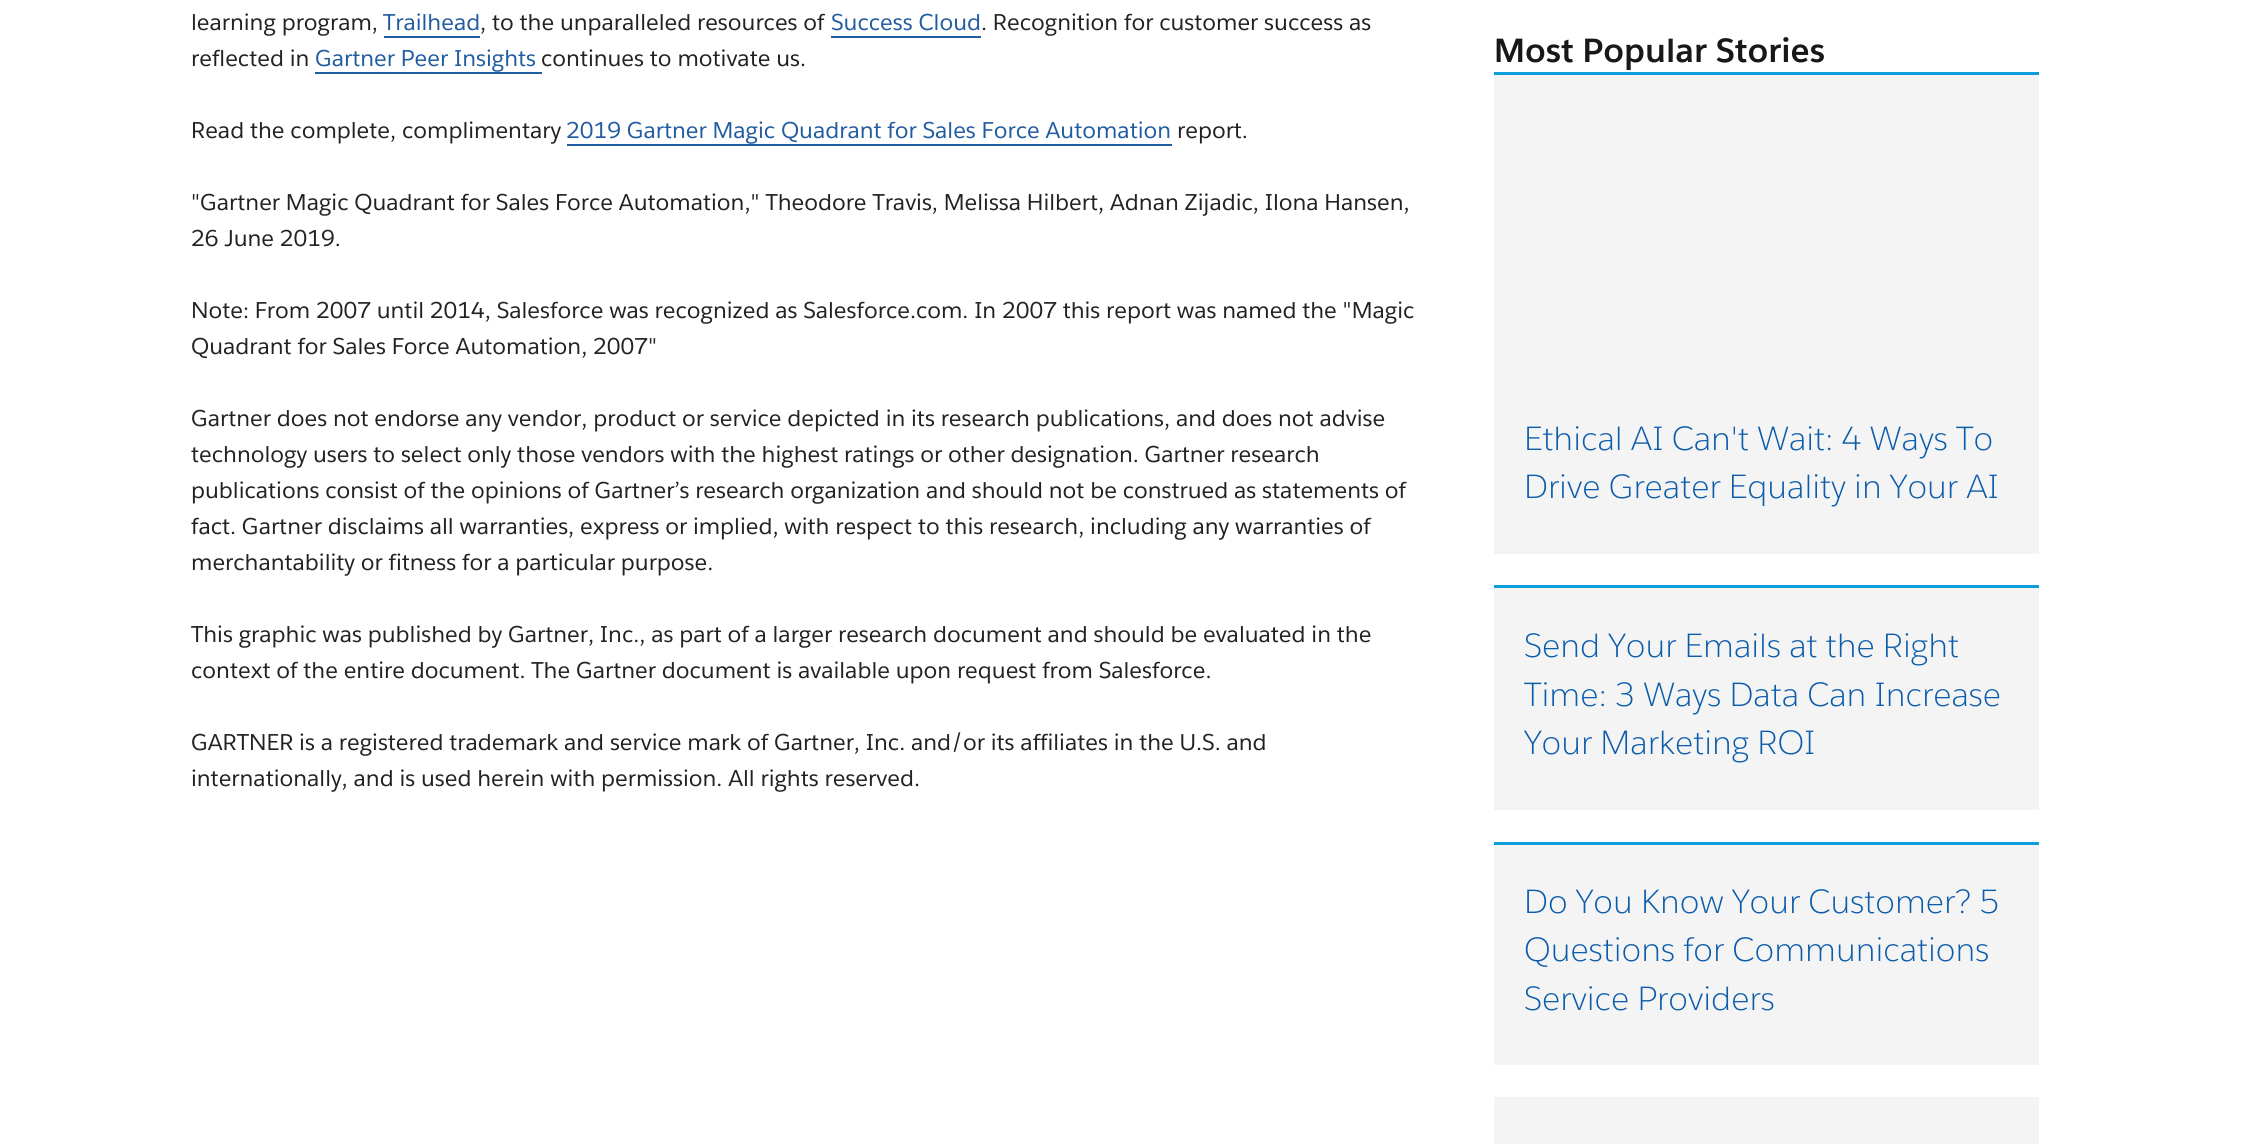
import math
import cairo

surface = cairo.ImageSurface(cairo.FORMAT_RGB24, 2252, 1144)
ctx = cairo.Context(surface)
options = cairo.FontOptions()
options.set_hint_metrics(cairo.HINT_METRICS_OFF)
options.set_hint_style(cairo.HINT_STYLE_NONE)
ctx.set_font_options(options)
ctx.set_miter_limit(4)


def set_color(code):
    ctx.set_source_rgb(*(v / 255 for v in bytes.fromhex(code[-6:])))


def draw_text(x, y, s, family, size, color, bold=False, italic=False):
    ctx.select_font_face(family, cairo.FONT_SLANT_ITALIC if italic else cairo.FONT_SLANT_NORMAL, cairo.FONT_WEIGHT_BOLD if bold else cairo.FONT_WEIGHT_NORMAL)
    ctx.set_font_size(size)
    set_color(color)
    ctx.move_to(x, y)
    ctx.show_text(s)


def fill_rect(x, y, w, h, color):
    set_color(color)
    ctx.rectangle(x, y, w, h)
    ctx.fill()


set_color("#ffffff")
ctx.paint()
draw_text(191, 30, "learning program,", "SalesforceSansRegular", 22.5, "#222222")
draw_text(383, 30, "Trailhead", "SalesforceSansRegular", 22.5, "#215ca0")
fill_rect(384, 36, 96, 2, "#215ca0")
draw_text(480, 30, ", to the unparalleled resources of", "SalesforceSansRegular", 22.5, "#222222")
draw_text(831, 30, "Success Cloud", "SalesforceSansRegular", 22.5, "#215ca0")
fill_rect(831, 36, 150, 2, "#215ca0")
draw_text(981, 30, ". Recognition for customer success as", "SalesforceSansRegular", 22.5, "#222222")
draw_text(191, 66, "reflected in", "SalesforceSansRegular", 22.5, "#222222")
draw_text(315, 66, "Gartner Peer Insights", "SalesforceSansRegular", 22.5, "#215ca0")
fill_rect(315, 72, 227, 2, "#215ca0")
draw_text(541, 66, "continues to motivate us.", "SalesforceSansRegular", 22.5, "#222222")
draw_text(191, 138, "Read the complete, complimentary", "SalesforceSansRegular", 22.5, "#222222")
draw_text(566, 138, "2019 Gartner Magic Quadrant for Sales Force Automation", "SalesforceSansRegular", 22.5, "#215ca0")
fill_rect(567, 144, 605, 2, "#215ca0")
draw_text(1177, 138, "report.", "SalesforceSansRegular", 22.5, "#222222")
draw_text(191, 210, "\"Gartner Magic Quadrant for Sales Force Automation,\" Theodore Travis, Melissa Hilbert, Adnan Zijadic, Ilona Hansen,", "SalesforceSansRegular", 22.5, "#222222")
draw_text(191, 246, "26 June 2019.", "SalesforceSansRegular", 22.5, "#222222")
draw_text(191, 318, "Note: From 2007 until 2014, Salesforce was recognized as Salesforce.com. In 2007 this report was named the \"Magic", "SalesforceSansRegular", 22.5, "#222222")
draw_text(191, 354, "Quadrant for Sales Force Automation, 2007\"", "SalesforceSansRegular", 22.5, "#222222")
draw_text(191, 426, "Gartner does not endorse any vendor, product or service depicted in its research publications, and does not advise", "SalesforceSansRegular", 22.5, "#222222")
draw_text(191, 462, "technology users to select only those vendors with the highest ratings or other designation. Gartner research", "SalesforceSansRegular", 22.5, "#222222")
draw_text(191, 498, "publications consist of the opinions of Gartner’s research organization and should not be construed as statements of", "SalesforceSansRegular", 22.5, "#222222")
draw_text(191, 534, "fact. Gartner disclaims all warranties, express or implied, with respect to this research, including any warranties of", "SalesforceSansRegular", 22.5, "#222222")
draw_text(191, 570, "merchantability or fitness for a particular purpose.", "SalesforceSansRegular", 22.5, "#222222")
draw_text(191, 642, "This graphic was published by Gartner, Inc., as part of a larger research document and should be evaluated in the", "SalesforceSansRegular", 22.5, "#222222")
draw_text(191, 678, "context of the entire document. The Gartner document is available upon request from Salesforce.", "SalesforceSansRegular", 22.5, "#222222")
draw_text(191, 750, "GARTNER is a registered trademark and service mark of Gartner, Inc. and/or its affiliates in the U.S. and", "SalesforceSansRegular", 22.5, "#222222")
draw_text(191, 786, "internationally, and is used herein with permission. All rights reserved.", "SalesforceSansRegular", 22.5, "#222222")
draw_text(1494, 62, "Most Popular Stories", "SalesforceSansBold", 33, "#181818", bold=True)
fill_rect(1494, 75, 545, 479, "#f4f4f4")
fill_rect(1494, 72, 545, 3, "#0d9dda")
draw_text(1524, 450, "Ethical AI Can't Wait: 4 Ways To", "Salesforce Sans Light", 33, "#0b5cab")
draw_text(1524, 498, "Drive Greater Equality in Your AI", "Salesforce Sans Light", 33, "#0b5cab")
fill_rect(1494, 588, 545, 222, "#f4f4f4")
fill_rect(1494, 585, 545, 3, "#0d9dda")
draw_text(1524, 657, "Send Your Emails at the Right", "Salesforce Sans Light", 33, "#0b5cab")
draw_text(1524, 706, "Time: 3 Ways Data Can Increase", "Salesforce Sans Light", 33, "#0b5cab")
draw_text(1524, 754, "Your Marketing ROI", "Salesforce Sans Light", 33, "#0b5cab")
fill_rect(1494, 845, 545, 220, "#f4f4f4")
fill_rect(1494, 842, 545, 3, "#0d9dda")
draw_text(1524, 913, "Do You Know Your Customer? 5", "Salesforce Sans Light", 33, "#0b5cab")
draw_text(1524, 961, "Questions for Communications", "Salesforce Sans Light", 33, "#0b5cab")
draw_text(1524, 1010, "Service Providers", "Salesforce Sans Light", 33, "#0b5cab")
fill_rect(1494, 1097, 545, 47, "#f4f4f4")
surface.write_to_png("output.png")
